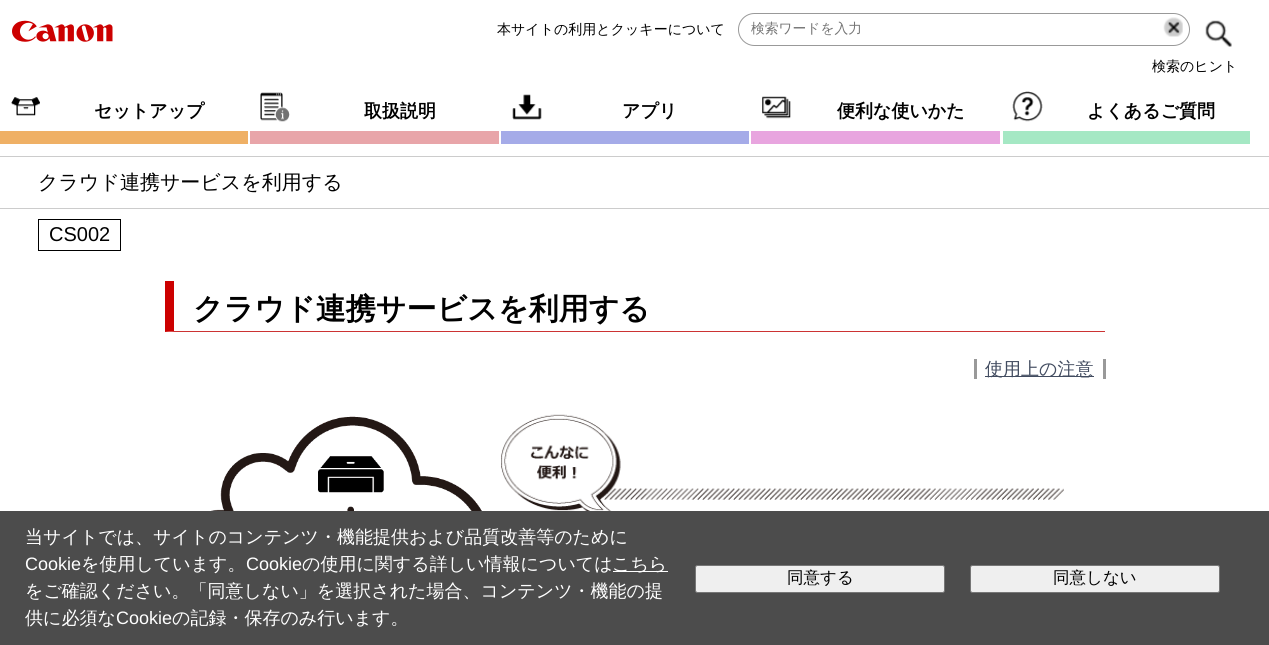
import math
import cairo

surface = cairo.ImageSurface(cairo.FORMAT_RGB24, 1269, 645)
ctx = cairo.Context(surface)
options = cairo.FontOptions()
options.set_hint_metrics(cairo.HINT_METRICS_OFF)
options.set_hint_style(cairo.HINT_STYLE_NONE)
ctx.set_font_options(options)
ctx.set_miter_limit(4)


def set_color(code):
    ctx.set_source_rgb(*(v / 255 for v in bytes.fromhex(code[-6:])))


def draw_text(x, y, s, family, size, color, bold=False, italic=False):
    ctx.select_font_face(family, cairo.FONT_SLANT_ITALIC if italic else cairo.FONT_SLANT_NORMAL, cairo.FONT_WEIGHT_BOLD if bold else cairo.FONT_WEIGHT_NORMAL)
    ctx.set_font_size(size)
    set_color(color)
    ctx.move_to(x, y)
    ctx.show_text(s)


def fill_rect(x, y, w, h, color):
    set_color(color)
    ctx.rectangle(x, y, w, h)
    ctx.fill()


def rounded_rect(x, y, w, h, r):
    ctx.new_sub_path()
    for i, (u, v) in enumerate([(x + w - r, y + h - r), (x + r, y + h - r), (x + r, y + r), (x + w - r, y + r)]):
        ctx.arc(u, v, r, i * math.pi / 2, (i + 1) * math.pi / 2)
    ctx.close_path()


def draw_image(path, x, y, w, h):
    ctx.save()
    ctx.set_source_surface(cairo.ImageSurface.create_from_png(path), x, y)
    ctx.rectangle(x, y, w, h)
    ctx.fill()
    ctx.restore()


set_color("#ffffff")
ctx.paint()
draw_image("assets/img1.png", 12, 20, 101, 22)
draw_text(497, 34, "本サイトの利用とクッキーについて", "WenQuanYi Zen Hei Medium", 14, "#000000")
rounded_rect(738.5, 13.5, 451, 32, 16)
set_color("#999999")
ctx.set_line_width(1)
ctx.stroke()
draw_text(751, 33, "検索ワードを入力", "WenQuanYi Zen Hei Medium", 13.75, "#757575")
draw_image("assets/img2.png", 1163, 17, 20, 20)
draw_image("assets/img3.png", 1205, 20, 27, 27)
draw_text(1152, 71, "検索のヒント", "WenQuanYi Zen Hei Medium", 14, "#000000")
fill_rect(0, 131, 248, 13, "#efb065")
draw_image("assets/img4.png", 11, 97, 29, 19)
draw_text(94, 117, "セットアップ", "WenQuanYi Zen Hei", 18, "#000000", bold=True)
fill_rect(250, 131, 249, 13, "#e8a5a9")
draw_image("assets/img5.png", 260, 92, 30, 30)
draw_text(364, 117, "取扱説明", "WenQuanYi Zen Hei", 18, "#000000", bold=True)
fill_rect(501, 131, 248, 13, "#a5abe8")
draw_image("assets/img6.png", 512, 94, 30, 26)
draw_text(622, 117, "アプリ", "WenQuanYi Zen Hei", 18, "#000000", bold=True)
fill_rect(751, 131, 249, 13, "#e8a5df")
draw_image("assets/img7.png", 762, 96, 29, 23)
draw_text(837, 117, "便利な使いかた", "WenQuanYi Zen Hei", 18, "#000000", bold=True)
fill_rect(1003, 131, 247, 13, "#a5e8c4")
draw_image("assets/img8.png", 1012, 91, 31, 31)
draw_text(1087, 117, "よくあるご質問", "WenQuanYi Zen Hei", 18, "#000000", bold=True)
fill_rect(0, 208, 1269, 1, "#cccccc")
fill_rect(0, 156, 1269, 1, "#cccccc")
draw_text(38, 189, "クラウド連携サービスを利用する", "WenQuanYi Zen Hei Medium", 20, "#000000")
ctx.rectangle(38.5, 219.5, 82, 31)
ctx.stroke()
draw_text(49, 241, "CS002", "Liberation Sans", 20, "#000000")
set_color("#cc3333")
ctx.new_path()
ctx.move_to(1105, 332)
ctx.line_to(165, 332)
ctx.line_to(174, 331)
ctx.line_to(1105, 331)
ctx.close_path()
ctx.fill()
set_color("#cc0000")
ctx.new_path()
ctx.move_to(165, 332)
ctx.line_to(165, 281)
ctx.line_to(174, 281)
ctx.line_to(174, 331)
ctx.close_path()
ctx.fill()
draw_text(193, 319, "クラウド連携サービスを利用する", "WenQuanYi Zen Hei", 30, "#000000", bold=True)
fill_rect(985, 376, 109, 1, "#424c60")
draw_text(985, 375, "使用上の注意", "WenQuanYi Zen Hei Medium", 18, "#424c60")
fill_rect(1103, 359, 3, 20, "#999999")
fill_rect(974, 359, 3, 20, "#999999")
draw_image("assets/img9.png", 211, 416, 271, 95)
draw_image("assets/img10.png", 501, 414, 563, 97)
fill_rect(0, 511, 1269, 134, "#4c4c4c")
draw_text(25, 543, "当サイトでは、サイトのコンテンツ・機能提供および品質改善等のために", "WenQuanYi Zen Hei Medium", 18, "#ffffff")
draw_text(25, 570, "Cookie", "Liberation Sans", 18, "#ffffff")
draw_text(81, 570, "を使用しています。", "WenQuanYi Zen Hei Medium", 18, "#ffffff")
draw_text(246, 570, "Cookie", "Liberation Sans", 18, "#ffffff")
draw_text(302, 570, "の使用に関する詳しい情報については", "WenQuanYi Zen Hei Medium", 18, "#ffffff")
fill_rect(613, 571, 55, 1, "#ffffff")
draw_text(612, 570, "こちら", "WenQuanYi Zen Hei Medium", 18, "#ffffff")
draw_text(25, 597, "をご確認ください。「同意しない」を選択された場合、コンテンツ・機能の提", "WenQuanYi Zen Hei Medium", 18, "#ffffff")
draw_text(25, 624, "供に必須な", "WenQuanYi Zen Hei Medium", 18, "#ffffff")
draw_text(116, 624, "Cookie", "Liberation Sans", 18, "#ffffff")
draw_text(172, 624, "の記録・保存のみ行います。", "WenQuanYi Zen Hei Medium", 18, "#ffffff")
set_color("#efefef")
rounded_rect(695.5, 565.5, 249, 27, 2)
ctx.fill_preserve()
set_color("#767676")
ctx.stroke()
draw_text(787, 583, "同意する", "WenQuanYi Zen Hei Medium", 16.5, "#000000")
set_color("#efefef")
rounded_rect(970.5, 565.5, 249, 27, 2)
ctx.fill_preserve()
set_color("#767676")
ctx.stroke()
draw_text(1053, 583, "同意しない", "WenQuanYi Zen Hei Medium", 16.5, "#000000")
surface.write_to_png("output.png")
